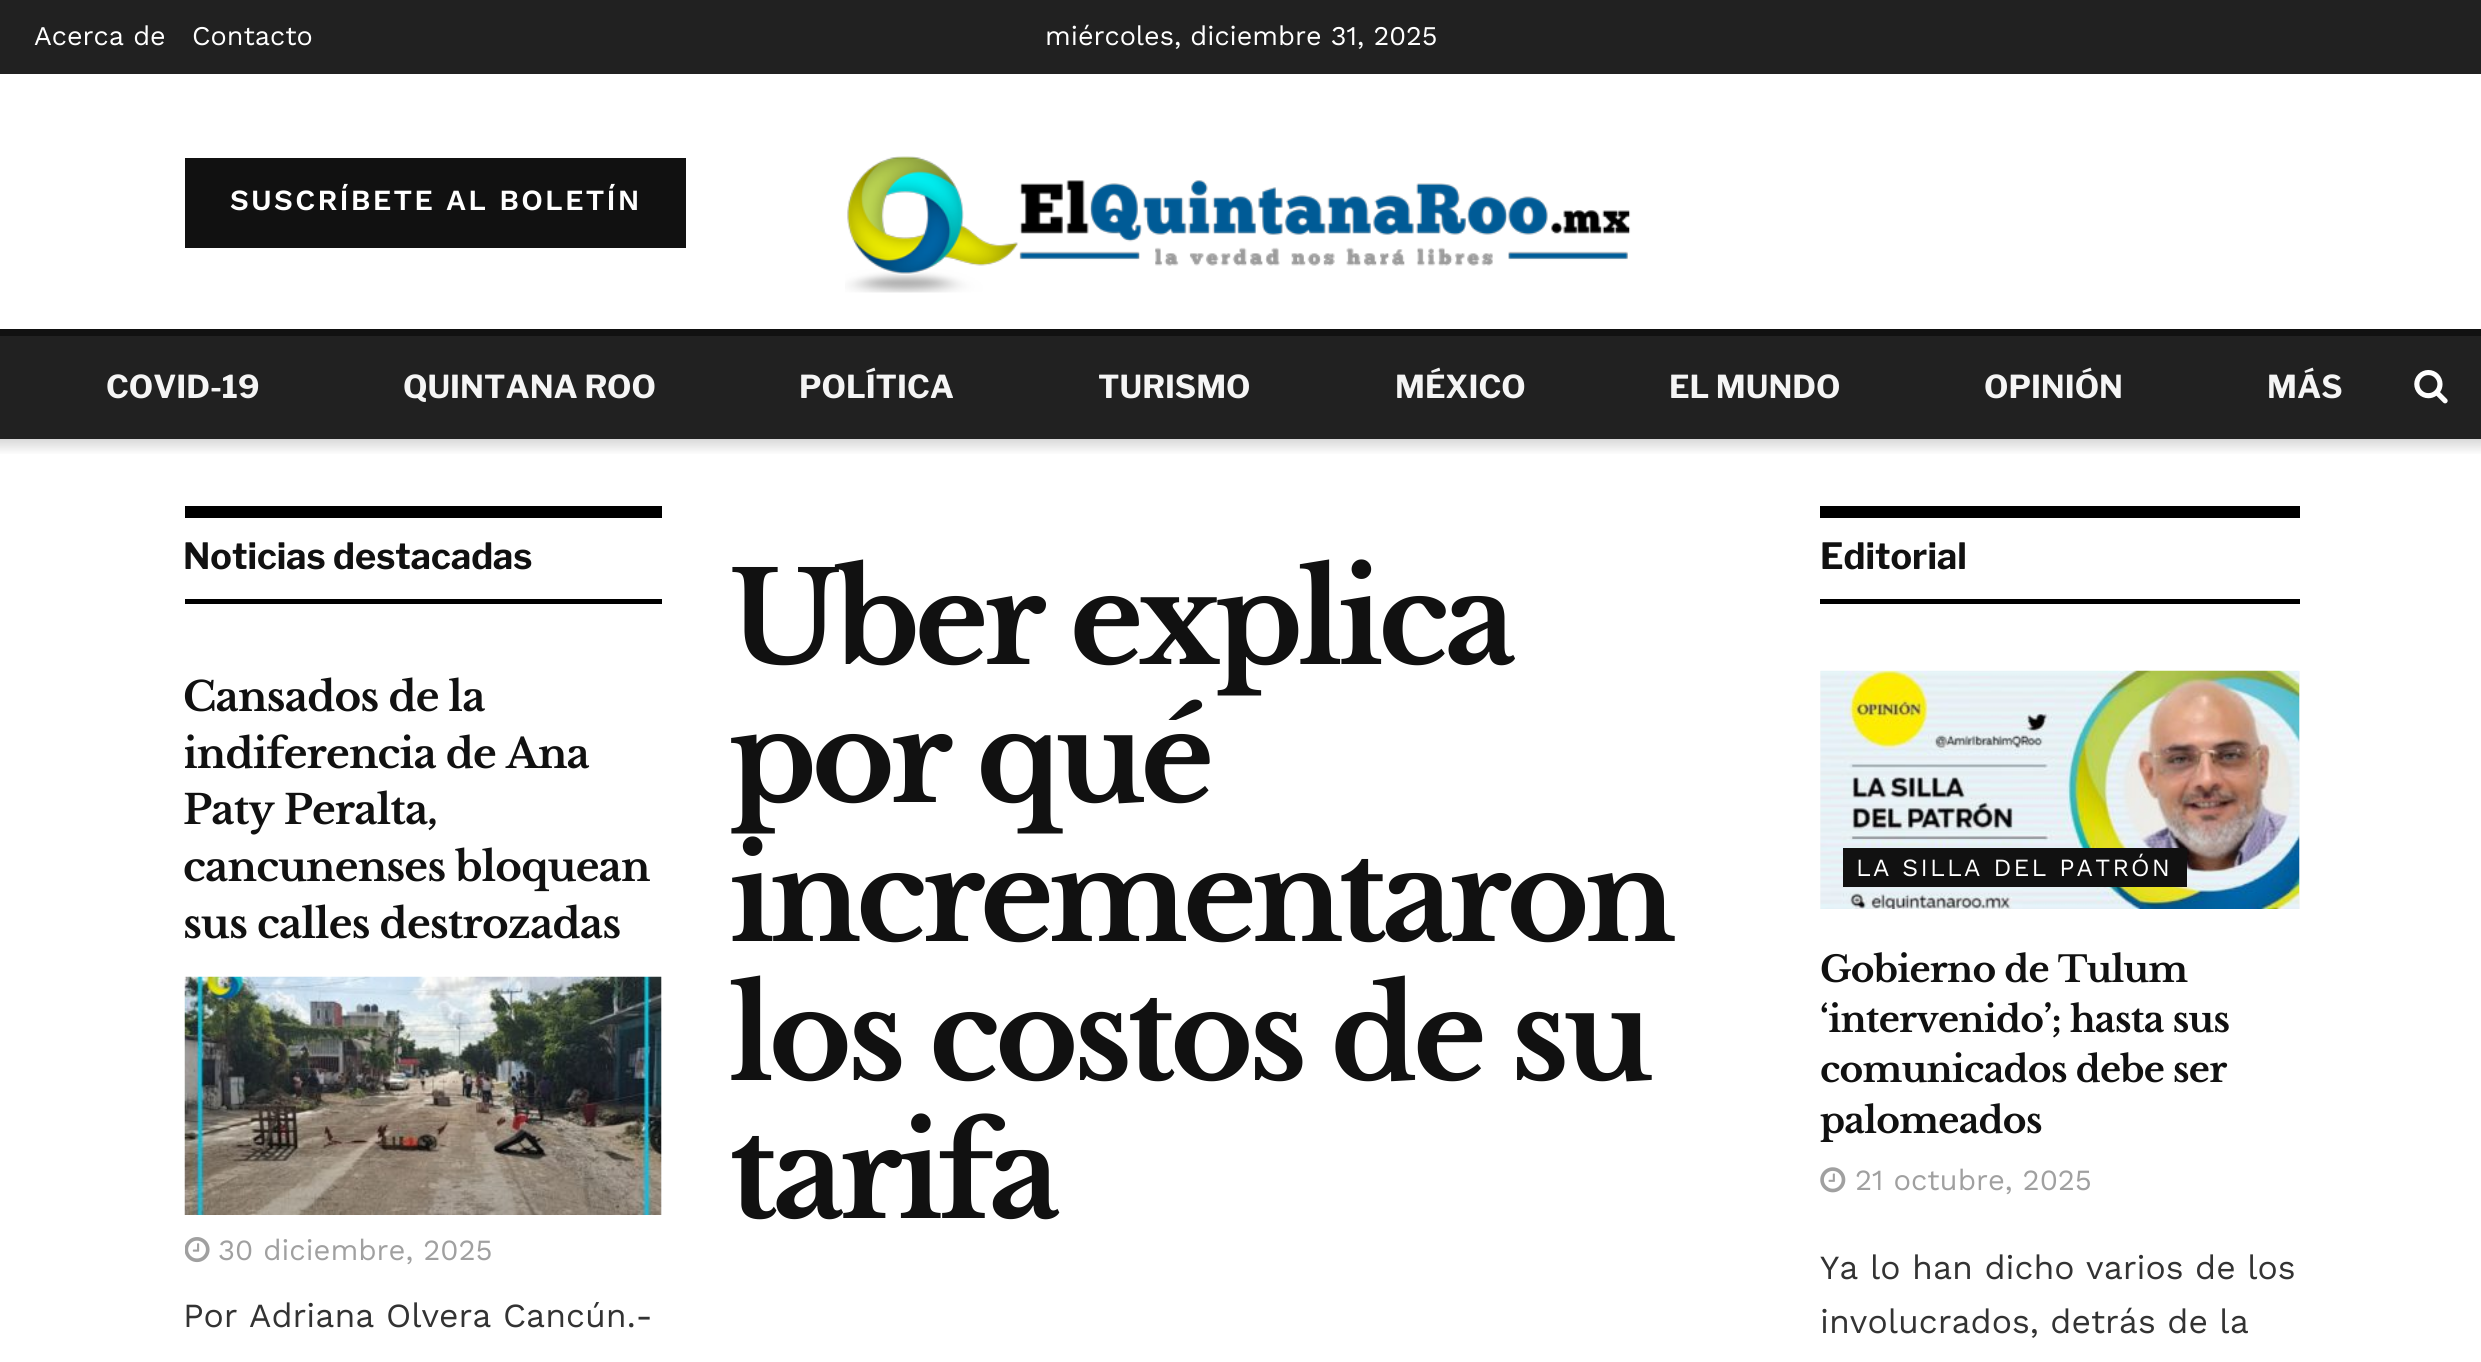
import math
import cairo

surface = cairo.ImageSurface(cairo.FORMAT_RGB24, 2481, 1362)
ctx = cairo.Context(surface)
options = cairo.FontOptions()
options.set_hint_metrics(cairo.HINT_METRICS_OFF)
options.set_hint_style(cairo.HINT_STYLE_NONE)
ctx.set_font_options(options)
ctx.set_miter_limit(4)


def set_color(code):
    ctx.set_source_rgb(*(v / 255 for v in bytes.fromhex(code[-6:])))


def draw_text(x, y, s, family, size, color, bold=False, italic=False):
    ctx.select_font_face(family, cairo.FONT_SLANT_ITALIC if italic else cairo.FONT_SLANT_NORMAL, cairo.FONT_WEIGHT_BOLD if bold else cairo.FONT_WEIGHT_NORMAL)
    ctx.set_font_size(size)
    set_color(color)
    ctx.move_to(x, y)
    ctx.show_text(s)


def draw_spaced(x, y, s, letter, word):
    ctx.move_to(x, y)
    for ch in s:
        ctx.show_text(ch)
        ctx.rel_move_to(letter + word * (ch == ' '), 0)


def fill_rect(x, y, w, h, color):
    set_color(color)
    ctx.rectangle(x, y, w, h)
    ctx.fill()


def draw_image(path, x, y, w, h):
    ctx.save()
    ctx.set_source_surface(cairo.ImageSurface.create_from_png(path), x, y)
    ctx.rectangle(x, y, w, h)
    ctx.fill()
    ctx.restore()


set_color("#ffffff")
ctx.paint()
fill_rect(0, 0, 2481, 74, "#212121")
draw_text(34, 45, "Acerca de", "Work Sans", 27, "#ffffff")
draw_text(192, 45, "Contacto", "Work Sans", 27, "#ffffff")
draw_text(1045, 45, "miércoles, diciembre 31, 2025", "Work Sans", 27, "#ffffff")
fill_rect(185, 158, 501, 90, "#111111")
ctx.select_font_face("Work Sans SemiBold")
ctx.set_font_size(29.25)
set_color("#ffffff")
draw_spaced(230, 210, "SUSCRÍBETE AL BOLETÍN", 2.25, 0)
draw_image("assets/img1.png", 845, 156, 786, 137)
fill_rect(0, 336, 2481, 103, "#212121")
fill_rect(0, 329, 2481, 7, "#111111")
draw_text(106, 398, "COVID-19", "Libre Franklin", 31.5, "#f5f5f5", bold=True)
draw_text(403, 398, "QUINTANA ROO", "Libre Franklin", 31.5, "#f5f5f5", bold=True)
draw_text(799, 398, "POLÍTICA", "Libre Franklin", 31.5, "#f5f5f5", bold=True)
draw_text(1098, 398, "TURISMO", "Libre Franklin", 31.5, "#f5f5f5", bold=True)
draw_text(1395, 398, "MÉXICO", "Libre Franklin", 31.5, "#f5f5f5", bold=True)
draw_text(1669, 398, "EL MUNDO", "Libre Franklin", 31.5, "#f5f5f5", bold=True)
draw_text(1984, 398, "OPINIÓN", "Libre Franklin", 31.5, "#f5f5f5", bold=True)
draw_text(2267, 398, "MÁS", "Libre Franklin", 31.5, "#f5f5f5", bold=True)
draw_image("assets/img2.png", 2414, 370, 34, 34)
gradient = cairo.LinearGradient(1241, 439, 1241, 455)
gradient.add_color_stop_rgba(0, 0.851, 0.851, 0.851, 1)
gradient.add_color_stop_rgba(1, 1, 1, 1, 1)
ctx.set_source(gradient)
ctx.rectangle(0, 439, 2481, 15)
ctx.fill()
fill_rect(185, 506, 477, 12, "#000000")
fill_rect(185, 599, 477, 5, "#000000")
draw_text(183, 569, "Noticias destacadas", "Libre Franklin", 36, "#111111", bold=True)
ctx.select_font_face("Libre Baskerville", cairo.FONT_SLANT_NORMAL, cairo.FONT_WEIGHT_BOLD)
ctx.set_font_size(40.5)
draw_spaced(183, 711, "Cansados de la", -0.8, 0)
ctx.save()
ctx.rectangle(185, 671, 477, 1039)
ctx.clip()
draw_spaced(183, 768, "indiferencia de Ana", -0.8, 0)
ctx.restore()
draw_spaced(183, 824, "Paty Peralta,", -0.8, 0)
draw_spaced(183, 881, "cancunenses bloquean", -0.8, 0)
draw_spaced(183, 938, "sus calles destrozadas", -0.8, 0)
fill_rect(661, 977, 1, 238, "#f7f7f7")
draw_image("assets/img3.png", 184, 976, 478, 239)
draw_image("assets/img4.png", 185, 1237, 25, 26)
draw_text(218, 1260, "30 diciembre, 2025", "Work Sans", 29.25, "#a0a0a0")
draw_text(183, 1327, "Por Adriana Olvera Cancún.-", "Work Sans", 33.75, "#333333")
ctx.select_font_face("Libre Baskerville", cairo.FONT_SLANT_NORMAL, cairo.FONT_WEIGHT_BOLD)
ctx.set_font_size(126)
set_color("#111111")
draw_spaced(729, 664, "Uber explica", -5, 0)
draw_spaced(729, 802, "por qué", -5, 0)
draw_spaced(729, 941, "incrementaron", -5, 0)
draw_spaced(729, 1080, "los costos de su", -5, 0)
draw_spaced(729, 1218, "tarifa", -5, 0)
fill_rect(1820, 506, 480, 12, "#000000")
fill_rect(1820, 599, 480, 5, "#000000")
draw_text(1820, 569, "Editorial", "Libre Franklin", 36, "#111111", bold=True)
fill_rect(1820, 671, 480, 238, "#f7f7f7")
draw_image("assets/img5.png", 1820, 670, 480, 239)
fill_rect(1843, 848, 344, 39, "#111111")
ctx.select_font_face("Work Sans")
ctx.set_font_size(24.75)
set_color("#ffffff")
draw_spaced(1856, 876, "LA SILLA DEL PATRÓN", 2.25, 0)
ctx.select_font_face("Libre Baskerville", cairo.FONT_SLANT_NORMAL, cairo.FONT_WEIGHT_BOLD)
ctx.set_font_size(36)
set_color("#111111")
draw_spaced(1820, 982, "Gobierno de Tulum", -0.75, 0)
draw_spaced(1820, 1032, "‘intervenido’; hasta sus", -0.75, 0)
draw_spaced(1820, 1082, "comunicados debe ser", -0.75, 0)
draw_spaced(1820, 1133, "palomeados", -0.75, 0)
draw_image("assets/img6.png", 1820, 1167, 26, 26)
draw_text(1855, 1190, "21 octubre, 2025", "Work Sans", 29.25, "#a0a0a0")
draw_text(1820, 1279, "Ya lo han dicho varios de los", "Work Sans", 33.75, "#333333")
draw_text(1820, 1333, "involucrados, detrás de la", "Work Sans", 33.75, "#333333")
surface.write_to_png("output.png")
